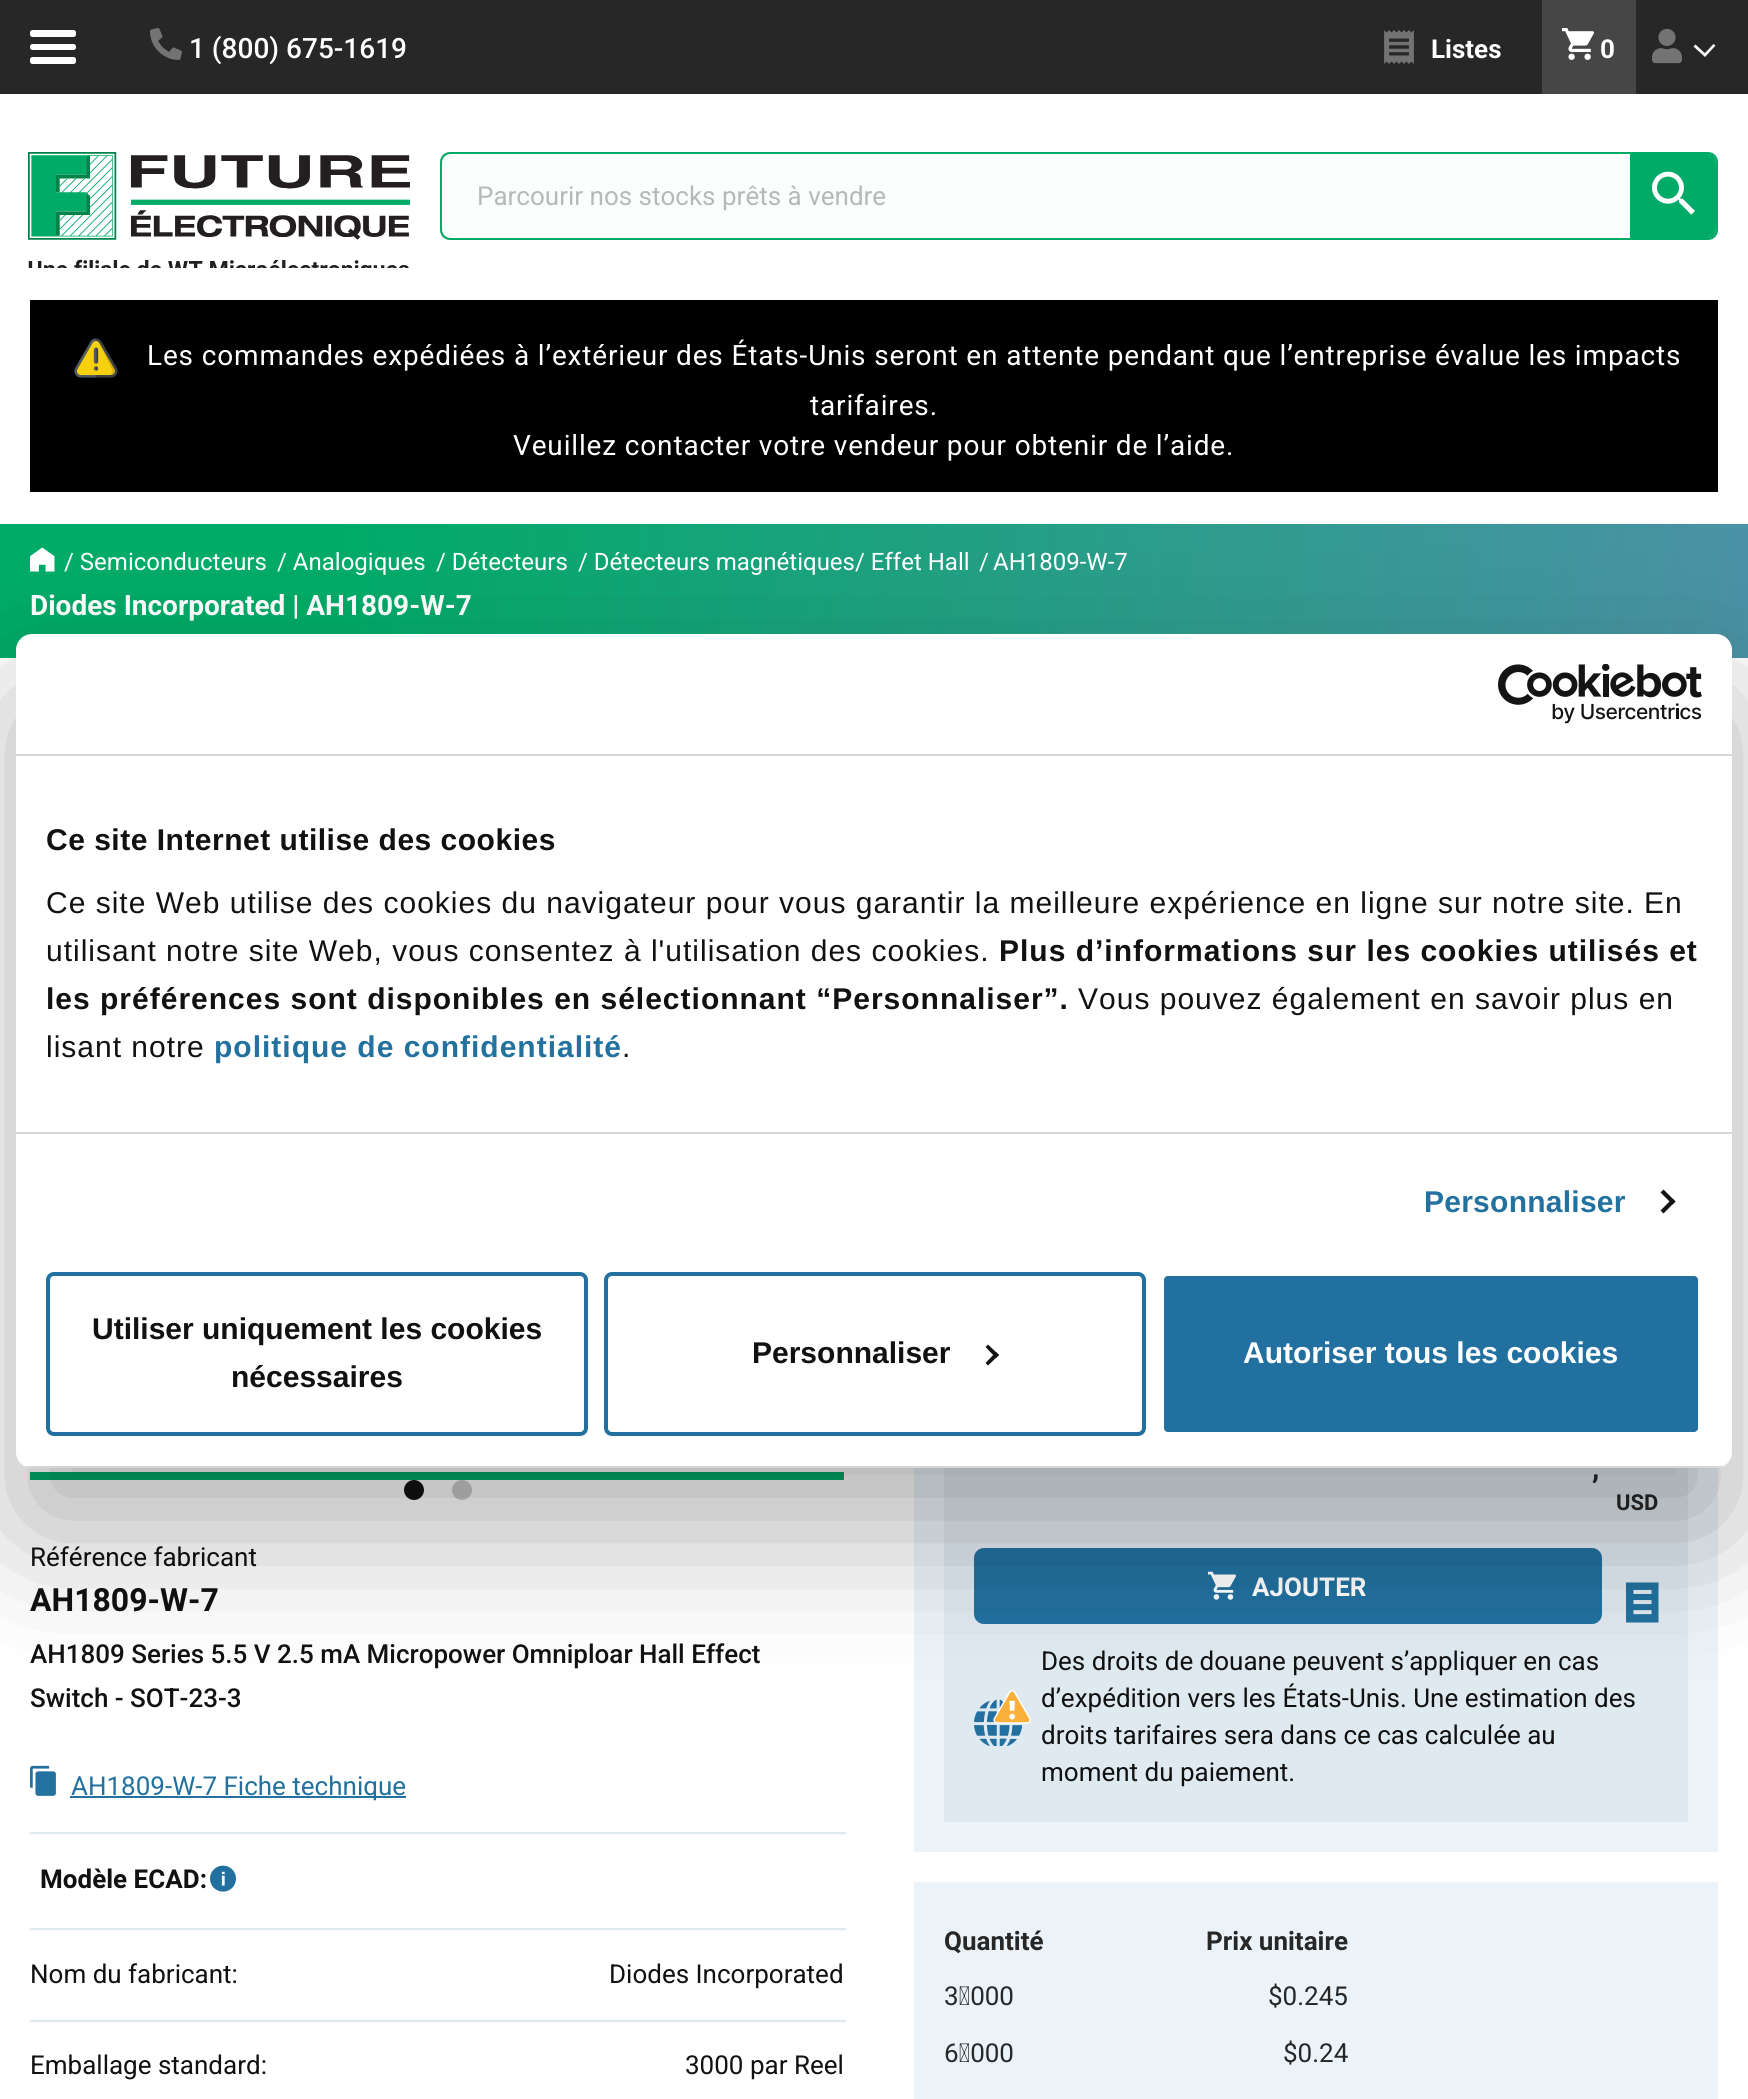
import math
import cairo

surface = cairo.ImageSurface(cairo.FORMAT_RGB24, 1748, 2099)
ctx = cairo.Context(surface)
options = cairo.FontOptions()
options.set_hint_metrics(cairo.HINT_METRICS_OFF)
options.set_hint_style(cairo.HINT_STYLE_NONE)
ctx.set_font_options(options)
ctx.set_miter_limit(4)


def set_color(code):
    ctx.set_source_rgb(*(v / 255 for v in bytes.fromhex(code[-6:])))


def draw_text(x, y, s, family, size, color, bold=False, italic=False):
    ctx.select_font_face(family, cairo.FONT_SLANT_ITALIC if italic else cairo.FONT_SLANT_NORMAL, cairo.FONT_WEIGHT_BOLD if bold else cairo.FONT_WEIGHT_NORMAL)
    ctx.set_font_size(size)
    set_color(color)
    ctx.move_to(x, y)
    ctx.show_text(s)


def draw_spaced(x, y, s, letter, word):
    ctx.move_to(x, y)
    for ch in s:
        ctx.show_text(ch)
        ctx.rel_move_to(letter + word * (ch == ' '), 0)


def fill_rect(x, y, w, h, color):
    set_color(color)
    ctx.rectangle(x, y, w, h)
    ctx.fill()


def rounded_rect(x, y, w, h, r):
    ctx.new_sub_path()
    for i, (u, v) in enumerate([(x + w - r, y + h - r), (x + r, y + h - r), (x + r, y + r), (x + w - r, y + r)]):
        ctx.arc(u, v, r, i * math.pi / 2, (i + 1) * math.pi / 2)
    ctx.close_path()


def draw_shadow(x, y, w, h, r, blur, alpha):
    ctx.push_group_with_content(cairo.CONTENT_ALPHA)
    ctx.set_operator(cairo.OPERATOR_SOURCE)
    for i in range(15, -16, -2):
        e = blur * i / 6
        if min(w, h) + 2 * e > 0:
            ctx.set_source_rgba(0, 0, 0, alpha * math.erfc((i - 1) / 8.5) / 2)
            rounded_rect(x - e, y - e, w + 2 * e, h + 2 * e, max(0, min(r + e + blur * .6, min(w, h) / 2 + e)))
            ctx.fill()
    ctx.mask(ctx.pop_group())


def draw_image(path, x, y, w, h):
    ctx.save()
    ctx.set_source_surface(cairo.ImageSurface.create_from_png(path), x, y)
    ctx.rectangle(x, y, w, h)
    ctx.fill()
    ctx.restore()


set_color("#ffffff")
ctx.paint()
fill_rect(0, 0, 1748, 94, "#272727")
set_color("#ffffff")
rounded_rect(30, 30, 46, 7, 2.5)
ctx.fill()
rounded_rect(30, 57, 46, 7, 2.5)
ctx.fill()
rounded_rect(30, 44, 46, 6, 2.5)
ctx.fill()
draw_image("assets/img1.png", 150, 28, 32, 32)
draw_text(189, 58, "1 (800) 675-1619", "Roboto Medium", 28, "#ffffff")
draw_image("assets/img2.png", 1384, 30, 30, 34)
draw_text(1431, 58, "Listes", "Roboto", 26, "#ffffff", bold=True)
fill_rect(1542, 0, 94, 94, "#464646")
draw_image("assets/img3.png", 1562, 28, 32, 32)
draw_text(1600, 58, "0", "Roboto", 26, "#ffffff", bold=True)
draw_image("assets/img4.png", 1652, 28, 30, 36)
ctx.new_path()
ctx.move_to(1703.5, 52)
ctx.line_to(1695.5, 44.5)
ctx.line_to(1693.5, 46.5)
ctx.line_to(1705, 57)
ctx.line_to(1715.5, 45.5)
ctx.line_to(1713.5, 44)
ctx.line_to(1705, 53)
ctx.close_path()
ctx.fill()
draw_image("assets/img5.png", 28, 152, 382, 116)
set_color("#cccccc")
rounded_rect(441, 153, 1276, 86, 9)
ctx.fill_preserve()
set_color("#00ab67")
ctx.stroke()
set_color("#fafffd")
ctx.new_path()
ctx.move_to(452, 154)
ctx.line_to(1630, 154)
ctx.line_to(1630, 238)
ctx.line_to(452, 238)
ctx.curve_to(446.5, 238, 442, 233.5, 442, 228)
ctx.line_to(442, 164)
ctx.curve_to(442, 158.5, 446.5, 154, 452, 154)
ctx.close_path()
ctx.fill()
draw_text(477, 205, "Parcourir nos stocks prêts à vendre", "Roboto", 26, "#b7b9b8")
set_color("#00ab67")
ctx.new_path()
ctx.move_to(1630, 154)
ctx.line_to(1708, 154)
ctx.curve_to(1712.5, 154, 1716, 157.5, 1716, 162)
ctx.line_to(1716, 230)
ctx.curve_to(1716, 234.5, 1712.5, 238, 1708, 238)
ctx.line_to(1630, 238)
ctx.close_path()
ctx.fill()
draw_image("assets/img6.png", 1652, 171, 43, 44)
fill_rect(30, 300, 1688, 192, "#000000")
draw_image("assets/img7.png", 74, 338, 44, 40)
ctx.set_font_size(28)
set_color("#ffffff")
draw_spaced(147, 365, "Les commandes expédiées à l’extérieur des États-Unis seront en attente pendant que l’entreprise évalue les impacts", 0.84, 0)
draw_spaced(810, 415, "tarifaires.", 0.84, 0)
draw_spaced(513, 455, "Veuillez contacter votre vendeur pour obtenir de l’aide.", 0.84, 0)
gradient = cairo.LinearGradient(0, 591, 1748, 591)
gradient.add_color_stop_rgba(0.19, 0, 0.671, 0.404, 1)
gradient.add_color_stop_rgba(1, 0.294, 0.573, 0.651, 1)
ctx.set_source(gradient)
ctx.rectangle(0, 524, 1748, 134)
ctx.fill()
draw_image("assets/img8.png", 30, 547, 25, 25)
draw_text(64, 570, "/ Semiconducteurs", "Roboto", 24, "#ffffff")
draw_text(277, 570, "/ Analogiques", "Roboto", 24, "#ffffff")
draw_text(436, 570, "/ Détecteurs", "Roboto", 24, "#ffffff")
draw_text(578, 570, "/ Détecteurs magnétiques/ Effet Hall", "Roboto", 24, "#ffffff")
draw_text(979, 570, "/", "Roboto", 24, "#ffffff")
draw_text(993, 570, "AH1809-W-7", "Roboto", 24, "#ffffff")
draw_text(30, 615, "Diodes Incorporated | AH1809-W-7", "Roboto", 28, "#ffffff", bold=True)
fill_rect(30, 1472, 814, 8, "#00ab67")
draw_image("assets/img9.png", 30, 1467, 814, 5)
set_color("#111111")
ctx.arc(414, 1490, 10, 0, 2 * math.pi)
ctx.fill()
set_color("#cccccc")
ctx.arc(462, 1490, 10, 0, 2 * math.pi)
ctx.fill()
draw_text(30, 1566, "Référence fabricant", "Roboto", 26, "#111111")
draw_text(30, 1611, "AH1809-W-7", "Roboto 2", 32, "#111111", bold=True)
draw_text(30, 1663, "AH1809 Series 5.5 V 2.5 mA Micropower Omniploar Hall Effect", "Roboto Medium", 26, "#111111")
draw_text(30, 1707, "Switch - SOT-23-3", "Roboto Medium", 26, "#111111")
fill_rect(30, 1832, 816, 2, "#dfe9f0")
draw_image("assets/img10.png", 30, 1765, 26, 31)
fill_rect(70, 1796, 336, 2, "#22719f")
draw_text(71, 1795, "AH1809-W-7 Fiche technique", "Roboto", 26, "#22719f")
fill_rect(30, 1928, 816, 2, "#dfe9f0")
draw_text(40, 1888, "Modèle ECAD:", "Roboto 2", 26, "#111111", bold=True)
draw_image("assets/img11.png", 210, 1865, 26, 27)
fill_rect(30, 2020, 816, 2, "#dfe9f0")
draw_text(30, 1983, "Nom du fabricant:", "Roboto", 26, "#111111")
draw_text(609, 1983, "Diodes Incorporated", "Roboto", 26, "#111111")
draw_text(30, 2074, "Emballage standard:", "Roboto", 26, "#111111")
draw_text(685, 2074, "3000 par Reel", "Roboto", 26, "#111111")
fill_rect(914, 1467, 804, 385, "#ebf3f9")
fill_rect(944, 1468, 744, 354, "#dfe9f0")
draw_text(1592, 1478, ",", "Roboto 2", 30, "#272727", bold=True)
draw_text(1616, 1510, "USD", "Roboto 2", 22, "#272727", bold=True)
set_color("#2270a0")
rounded_rect(975, 1549, 626, 74, 9)
ctx.fill_preserve()
ctx.stroke()
draw_image("assets/img12.png", 1208, 1571, 28, 29)
draw_text(1252, 1596, "AJOUTER", "Roboto 2", 26, "#ffffff", bold=True)
draw_image("assets/img13.png", 1626, 1582, 33, 41)
draw_image("assets/img14.png", 974, 1690, 57, 56)
draw_text(1041, 1670, "Des droits de douane peuvent s’appliquer en cas", "Roboto", 26, "#111111")
draw_text(1041, 1707, "d’expédition vers les États-Unis. Une estimation des", "Roboto", 26, "#111111")
draw_text(1041, 1744, "droits tarifaires sera dans ce cas calculée au", "Roboto", 26, "#111111")
draw_text(1041, 1781, "moment du paiement.", "Roboto", 26, "#111111")
fill_rect(914, 1882, 804, 217, "#ebf3f9")
draw_text(944, 1950, "Quantité", "Roboto 2", 26, "#272727", bold=True)
draw_text(1206, 1950, "Prix unitaire", "Roboto 2", 26, "#272727", bold=True)
draw_text(944, 2005, "3 000", "Roboto", 26, "#272727")
draw_text(1268, 2005, "$0.245", "Roboto", 26, "#272727")
draw_text(944, 2062, "6 000", "Roboto", 26, "#272727")
draw_text(1283, 2062, "$0.24", "Roboto", 26, "#272727")
set_color("#000000")
draw_shadow(16, 698, 1716, 834, 16, 68, 0.3)
set_color("#ffffff")
rounded_rect(16, 634, 1716, 834, 16)
ctx.fill()
fill_rect(16, 754, 1716, 2, "#d6d6d6")
draw_image("assets/img15.png", 1498, 664, 204, 60)
fill_rect(16, 1132, 1716, 2, "#d6d6d6")
ctx.select_font_face("Liberation Sans", cairo.FONT_SLANT_NORMAL, cairo.FONT_WEIGHT_BOLD)
ctx.set_font_size(30)
set_color("#111111")
draw_spaced(46, 850, "Ce site Internet utilise des cookies", 0.5, 0)
ctx.select_font_face("Liberation Sans")
draw_spaced(46, 913, "Ce site Web utilise des cookies du navigateur pour vous garantir la meilleure expérience en ligne sur notre site. En", 1, 0)
draw_spaced(46, 961, "utilisant notre site Web, vous consentez à l'utilisation des cookies.", 1, 0)
ctx.select_font_face("Liberation Sans", cairo.FONT_SLANT_NORMAL, cairo.FONT_WEIGHT_BOLD)
draw_spaced(999, 961, "Plus d’informations sur les cookies utilisés et", 1, 0)
draw_spaced(46, 1009, "les préférences sont disponibles en sélectionnant “Personnaliser”.", 1, 0)
ctx.select_font_face("Liberation Sans")
draw_spaced(1078, 1009, "Vous pouvez également en savoir plus en", 1, 0)
draw_spaced(46, 1057, "lisant notre", 1, 0)
ctx.select_font_face("Liberation Sans", cairo.FONT_SLANT_NORMAL, cairo.FONT_WEIGHT_BOLD)
set_color("#22719f")
draw_spaced(214, 1057, "politique de confidentialité", 1, 0)
ctx.select_font_face("Liberation Sans")
set_color("#111111")
draw_spaced(622, 1057, ".", 1, 0)
ctx.select_font_face("Liberation Sans", cairo.FONT_SLANT_NORMAL, cairo.FONT_WEIGHT_BOLD)
set_color("#22719f")
draw_spaced(1424, 1212, "Personnaliser", 0.25, 0)
set_color("#141414")
ctx.new_path()
ctx.move_to(1663.5, 1189.5)
ctx.line_to(1675.5, 1201.5)
ctx.line_to(1672.5, 1204.5)
ctx.line_to(1660.5, 1192.5)
ctx.close_path()
ctx.fill()
ctx.new_path()
ctx.move_to(1672.5, 1198.5)
ctx.line_to(1675.5, 1201.5)
ctx.line_to(1663.5, 1213.5)
ctx.line_to(1660.5, 1210.5)
ctx.close_path()
ctx.fill()
ctx.save()
rounded_rect(16, 634, 1716, 834, 16)
ctx.clip()
fill_rect(16, 1466, 1716, 2, "#d6d6d6")
ctx.restore()
rounded_rect(48, 1274, 538, 160, 6)
set_color("#2270a0")
ctx.set_line_width(4)
ctx.stroke()
draw_text(92, 1339, "Utiliser uniquement les cookies", "Liberation Sans", 30, "#111111", bold=True)
draw_text(231, 1387, "nécessaires", "Liberation Sans", 30, "#111111", bold=True)
rounded_rect(606, 1274, 538, 160, 6)
set_color("#2270a0")
ctx.stroke()
draw_text(752, 1363, "Personnaliser", "Liberation Sans", 30, "#111111", bold=True)
set_color("#141414")
ctx.new_path()
ctx.move_to(988, 1344.5)
ctx.line_to(999, 1355)
ctx.line_to(996, 1358)
ctx.line_to(985.5, 1347)
ctx.close_path()
ctx.fill()
ctx.new_path()
ctx.move_to(996, 1352)
ctx.line_to(999, 1355)
ctx.line_to(988, 1365.5)
ctx.line_to(985.5, 1363)
ctx.close_path()
ctx.fill()
set_color("#2270a0")
rounded_rect(1162, 1274, 538, 160, 6)
ctx.fill_preserve()
set_color("#ffffff")
ctx.stroke()
draw_text(1243, 1363, "Autoriser tous les cookies", "Liberation Sans", 30, "#ffffff", bold=True)
surface.write_to_png("output.png")
